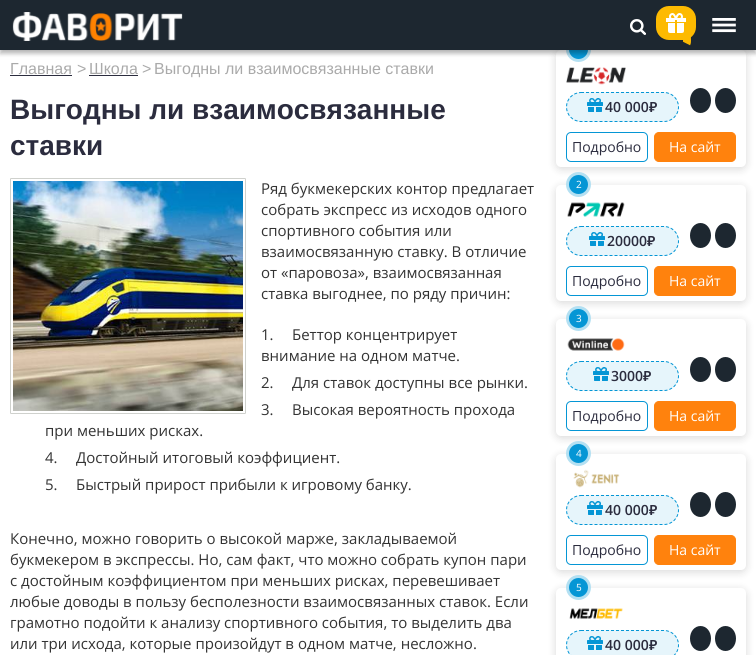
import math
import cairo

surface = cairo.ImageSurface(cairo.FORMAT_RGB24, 756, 655)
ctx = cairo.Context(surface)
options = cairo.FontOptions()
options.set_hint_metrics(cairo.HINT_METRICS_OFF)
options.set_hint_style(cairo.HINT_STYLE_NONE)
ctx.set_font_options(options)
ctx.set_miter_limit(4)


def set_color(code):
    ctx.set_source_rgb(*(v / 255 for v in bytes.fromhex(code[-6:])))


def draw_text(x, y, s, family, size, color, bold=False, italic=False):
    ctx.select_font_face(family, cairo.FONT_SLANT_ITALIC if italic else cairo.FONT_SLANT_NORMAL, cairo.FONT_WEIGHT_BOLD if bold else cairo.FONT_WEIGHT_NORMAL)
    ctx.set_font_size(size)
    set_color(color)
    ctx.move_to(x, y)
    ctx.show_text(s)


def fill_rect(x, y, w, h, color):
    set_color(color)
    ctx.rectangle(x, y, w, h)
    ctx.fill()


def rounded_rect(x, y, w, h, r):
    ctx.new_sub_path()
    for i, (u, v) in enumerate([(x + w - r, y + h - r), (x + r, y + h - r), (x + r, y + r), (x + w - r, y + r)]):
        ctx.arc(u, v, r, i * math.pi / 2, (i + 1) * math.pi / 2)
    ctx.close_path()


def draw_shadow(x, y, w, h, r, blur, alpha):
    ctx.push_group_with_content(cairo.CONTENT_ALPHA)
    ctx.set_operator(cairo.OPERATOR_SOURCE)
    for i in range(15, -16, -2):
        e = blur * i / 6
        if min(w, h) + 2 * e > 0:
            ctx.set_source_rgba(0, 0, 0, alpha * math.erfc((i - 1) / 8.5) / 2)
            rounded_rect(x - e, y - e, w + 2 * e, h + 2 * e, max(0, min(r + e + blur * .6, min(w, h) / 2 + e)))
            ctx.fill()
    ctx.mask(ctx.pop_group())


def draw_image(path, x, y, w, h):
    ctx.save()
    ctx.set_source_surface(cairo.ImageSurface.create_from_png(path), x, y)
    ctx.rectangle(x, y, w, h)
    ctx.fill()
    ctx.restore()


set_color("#ffffff")
ctx.paint()
set_color("#000000")
draw_shadow(556, 52, 190, 117, 5, 4.5, 0.15)
set_color("#ffffff")
rounded_rect(556, 50, 190, 117, 5)
ctx.fill()
set_color("#0596d5")
ctx.arc(578.5, 49.5, 11, 0, 2 * math.pi)
ctx.fill_preserve()
set_color("#b4e0f2")
ctx.set_line_width(3)
ctx.stroke()
set_color("#000000")
draw_shadow(0, 0, 756, 50, 0, 2, 0.12)
draw_shadow(0, 4, 756, 50, 0, 2, 0.24)
fill_rect(0, 0, 756, 50, "#1d2730")
draw_image("assets/img1.png", 12, 12, 171, 29)
draw_image("assets/img2.png", 630, 19, 16, 16)
ctx.new_path()
ctx.move_to(679.5, 36.5)
ctx.curve_to(680.5, 36, 681.5, 36, 682.5, 36)
ctx.curve_to(687, 36, 687, 36, 687, 40.5)
ctx.curve_to(687, 41.5, 687, 42.5, 686.5, 43.5)
set_color("#fdba01")
ctx.set_line_width(8)
ctx.stroke()
rounded_rect(656, 6, 40, 34, 13)
ctx.fill()
draw_image("assets/img3.png", 666, 13, 20, 20)
draw_image("assets/img4.png", 712, 18, 24, 15)
draw_text(10, 74, "Главная", "Liberation Sans", 16, "#aaaaaa")
fill_rect(10, 75, 62, 1, "#2b2c3e")
draw_text(77, 74, ">", "Liberation Sans", 16, "#aaaaaa")
draw_text(89, 74, "Школа", "Liberation Sans", 16, "#aaaaaa")
fill_rect(89, 75, 49, 1, "#2b2c3e")
draw_text(142, 74, ">", "Liberation Sans", 16, "#aaaaaa")
draw_text(154, 74, "Выгодны ли взаимосвязанные ставки", "Liberation Sans", 16, "#aaaaaa")
draw_text(10, 119, "Выгодны ли взаимосвязанные", "Liberation Sans", 28, "#2b2c3e", bold=True)
draw_text(10, 155, "ставки", "Liberation Sans", 28, "#2b2c3e", bold=True)
rounded_rect(10.5, 178.5, 235, 235, 0.5)
set_color("#cfd1cd")
ctx.set_line_width(1)
ctx.stroke()
draw_image("assets/img5.png", 13, 181, 230, 230)
draw_text(261, 194, "Ряд букмекерских контор предлагает", "Open Sans", 15, "#333333")
draw_text(261, 215, "собрать экспресс из исходов одного", "Open Sans", 15, "#333333")
draw_text(261, 236, "спортивного события или", "Open Sans", 15, "#333333")
draw_text(261, 257, "взаимосвязанную ставку. В отличие", "Open Sans", 15, "#333333")
draw_text(261, 278, "от «паровоза», взаимосвязанная", "Open Sans", 15, "#333333")
draw_text(261, 299, "ставка выгоднее, по ряду причин:", "Open Sans", 15, "#333333")
draw_text(261, 340, "1.", "Open Sans", 15, "#333333")
draw_text(292, 340, "Беттор концентрирует", "Open Sans", 15, "#333333")
draw_text(261, 361, "внимание на одном матче.", "Open Sans", 15, "#333333")
draw_text(261, 388, "2.", "Open Sans", 15, "#333333")
draw_text(292, 388, "Для ставок доступны все рынки.", "Open Sans", 15, "#333333")
draw_text(261, 415, "3.", "Open Sans", 15, "#333333")
draw_text(292, 415, "Высокая вероятность прохода", "Open Sans", 15, "#333333")
draw_text(45, 436, "при меньших рисках.", "Open Sans", 15, "#333333")
draw_text(45, 463, "4.", "Open Sans", 15, "#333333")
draw_text(76, 463, "Достойный итоговый коэффициент.", "Open Sans", 15, "#333333")
draw_text(45, 490, "5.", "Open Sans", 15, "#333333")
draw_text(76, 490, "Быстрый прирост прибыли к игровому банку.", "Open Sans", 15, "#333333")
draw_text(10, 544, "Конечно, можно говорить о высокой марже, закладываемой", "Open Sans", 15, "#333333")
draw_text(10, 565, "букмекером в экспрессы. Но, сам факт, что можно собрать купон пари", "Open Sans", 15, "#333333")
draw_text(10, 586, "с достойным коэффициентом при меньших рисках, перевешивает", "Open Sans", 15, "#333333")
draw_text(10, 607, "любые доводы в пользу бесполезности взаимосвязанных ставок. Если", "Open Sans", 15, "#333333")
draw_text(10, 628, "грамотно подойти к анализу спортивного события, то выделить два", "Open Sans", 15, "#333333")
draw_text(10, 649, "или три исхода, которые произойдут в одном матче, несложно.", "Open Sans", 15, "#333333")
draw_image("assets/img6.png", 566, 67, 60, 18)
set_color("#e6f5fb")
rounded_rect(566, 92, 113, 30, 15)
ctx.fill()
ctx.new_path()
ctx.move_to(581, 92.5)
ctx.line_to(664, 92.5)
ctx.curve_to(672, 92.5, 678.5, 99, 678.5, 107)
ctx.curve_to(678.5, 115, 672, 121.5, 664, 121.5)
ctx.line_to(581, 121.5)
ctx.curve_to(573, 121.5, 566.5, 115, 566.5, 107)
ctx.curve_to(566.5, 99, 573, 92.5, 581, 92.5)
ctx.close_path()
set_color("#0596d5")
ctx.set_dash([3, 2])
ctx.stroke()
draw_image("assets/img7.png", 587, 98, 16, 14)
draw_text(605, 112, "40 000", "Open Sans SemiBold", 14, "#2b2c3e")
draw_text(649, 112, "₽", "Noto Sans SemiBold", 14, "#2b2c3e")
set_color("#1d2730")
ctx.new_path()
ctx.move_to(700.5, 88)
ctx.curve_to(706.5, 88, 711, 93.5, 711, 100.5)
ctx.curve_to(711, 107.5, 706.5, 113, 700.5, 113)
ctx.curve_to(694.5, 113, 690, 107.5, 690, 100.5)
ctx.curve_to(690, 93.5, 694.5, 88, 700.5, 88)
ctx.close_path()
ctx.fill()
ctx.new_path()
ctx.move_to(725.5, 88)
ctx.curve_to(731.5, 88, 736, 93.5, 736, 100.5)
ctx.curve_to(736, 107.5, 731.5, 113, 725.5, 113)
ctx.curve_to(719.5, 113, 715, 107.5, 715, 100.5)
ctx.curve_to(715, 93.5, 719.5, 88, 725.5, 88)
ctx.close_path()
ctx.fill()
rounded_rect(566.5, 132.5, 81, 29, 4.5)
set_color("#0596d5")
ctx.set_dash([])
ctx.stroke()
draw_text(572, 152, "Подробно", "Open Sans", 14, "#2b2c3e")
set_color("#ff820d")
rounded_rect(654.5, 132.5, 81, 29, 4.5)
ctx.fill_preserve()
ctx.stroke()
draw_text(669, 152, "На сайт", "Open Sans", 14, "#ffffff")
set_color("#000000")
draw_shadow(556, 187, 190, 116, 5, 4.5, 0.15)
set_color("#ffffff")
rounded_rect(556, 185, 190, 116, 5)
ctx.fill()
set_color("#0596d5")
ctx.arc(578.5, 184.5, 11, 0, 2 * math.pi)
ctx.fill_preserve()
set_color("#b4e0f2")
ctx.set_line_width(3)
ctx.stroke()
draw_text(576, 188, "2", "Open Sans", 10, "#ffffff")
draw_image("assets/img8.png", 567, 202, 58, 15)
set_color("#e6f5fb")
rounded_rect(566, 226, 113, 30, 15)
ctx.fill()
ctx.new_path()
ctx.move_to(581, 226.5)
ctx.line_to(664, 226.5)
ctx.curve_to(672, 226.5, 678.5, 233, 678.5, 241)
ctx.curve_to(678.5, 249, 672, 255.5, 664, 255.5)
ctx.line_to(581, 255.5)
ctx.curve_to(573, 255.5, 566.5, 249, 566.5, 241)
ctx.curve_to(566.5, 233, 573, 226.5, 581, 226.5)
ctx.close_path()
set_color("#0596d5")
ctx.set_line_width(1)
ctx.set_dash([3, 2])
ctx.stroke()
draw_image("assets/img7.png", 589, 232, 16, 14)
draw_text(607, 246, "20000", "Open Sans SemiBold", 14, "#2b2c3e")
draw_text(647, 246, "₽", "Noto Sans SemiBold", 14, "#2b2c3e")
set_color("#1d2730")
ctx.new_path()
ctx.move_to(700.5, 223)
ctx.curve_to(706.5, 223, 711, 228.5, 711, 235.5)
ctx.curve_to(711, 242.5, 706.5, 248, 700.5, 248)
ctx.curve_to(694.5, 248, 690, 242.5, 690, 235.5)
ctx.curve_to(690, 228.5, 694.5, 223, 700.5, 223)
ctx.close_path()
ctx.fill()
ctx.new_path()
ctx.move_to(725.5, 223)
ctx.curve_to(731.5, 223, 736, 228.5, 736, 235.5)
ctx.curve_to(736, 242.5, 731.5, 248, 725.5, 248)
ctx.curve_to(719.5, 248, 715, 242.5, 715, 235.5)
ctx.curve_to(715, 228.5, 719.5, 223, 725.5, 223)
ctx.close_path()
ctx.fill()
rounded_rect(566.5, 266.5, 81, 29, 4.5)
set_color("#0596d5")
ctx.set_dash([])
ctx.stroke()
draw_text(572, 286, "Подробно", "Open Sans", 14, "#2b2c3e")
set_color("#ff820d")
rounded_rect(654.5, 266.5, 81, 29, 4.5)
ctx.fill_preserve()
ctx.stroke()
draw_text(669, 286, "На сайт", "Open Sans", 14, "#ffffff")
set_color("#000000")
draw_shadow(556, 321, 190, 117, 5, 4.5, 0.15)
set_color("#ffffff")
rounded_rect(556, 319, 190, 117, 5)
ctx.fill()
set_color("#0596d5")
ctx.arc(578.5, 318.5, 11, 0, 2 * math.pi)
ctx.fill_preserve()
set_color("#b4e0f2")
ctx.set_line_width(3)
ctx.stroke()
draw_text(576, 322, "3", "Open Sans", 10, "#ffffff")
draw_image("assets/img9.png", 567, 338, 58, 13)
set_color("#e6f5fb")
rounded_rect(566, 361, 113, 30, 15)
ctx.fill()
ctx.new_path()
ctx.move_to(581, 361.5)
ctx.line_to(664, 361.5)
ctx.curve_to(672, 361.5, 678.5, 368, 678.5, 376)
ctx.curve_to(678.5, 384, 672, 390.5, 664, 390.5)
ctx.line_to(581, 390.5)
ctx.curve_to(573, 390.5, 566.5, 384, 566.5, 376)
ctx.curve_to(566.5, 368, 573, 361.5, 581, 361.5)
ctx.close_path()
set_color("#0596d5")
ctx.set_line_width(1)
ctx.set_dash([3, 2])
ctx.stroke()
draw_image("assets/img7.png", 593, 367, 16, 14)
draw_text(611, 381, "3000", "Open Sans SemiBold", 14, "#2b2c3e")
draw_text(643, 381, "₽", "Noto Sans SemiBold", 14, "#2b2c3e")
set_color("#1d2730")
ctx.new_path()
ctx.move_to(700.5, 357)
ctx.curve_to(706.5, 357, 711, 362.5, 711, 369.5)
ctx.curve_to(711, 376.5, 706.5, 382, 700.5, 382)
ctx.curve_to(694.5, 382, 690, 376.5, 690, 369.5)
ctx.curve_to(690, 362.5, 694.5, 357, 700.5, 357)
ctx.close_path()
ctx.fill()
ctx.new_path()
ctx.move_to(725.5, 357)
ctx.curve_to(731.5, 357, 736, 362.5, 736, 369.5)
ctx.curve_to(736, 376.5, 731.5, 382, 725.5, 382)
ctx.curve_to(719.5, 382, 715, 376.5, 715, 369.5)
ctx.curve_to(715, 362.5, 719.5, 357, 725.5, 357)
ctx.close_path()
ctx.fill()
rounded_rect(566.5, 401.5, 81, 29, 4.5)
set_color("#0596d5")
ctx.set_dash([])
ctx.stroke()
draw_text(572, 421, "Подробно", "Open Sans", 14, "#2b2c3e")
set_color("#ff820d")
rounded_rect(654.5, 401.5, 81, 29, 4.5)
ctx.fill_preserve()
ctx.stroke()
draw_text(669, 421, "На сайт", "Open Sans", 14, "#ffffff")
set_color("#000000")
draw_shadow(556, 456, 190, 116, 5, 4.5, 0.15)
set_color("#ffffff")
rounded_rect(556, 454, 190, 116, 5)
ctx.fill()
set_color("#0596d5")
ctx.arc(578.5, 453.5, 11, 0, 2 * math.pi)
ctx.fill_preserve()
set_color("#b4e0f2")
ctx.set_line_width(3)
ctx.stroke()
draw_text(576, 457, "4", "Open Sans", 10, "#ffffff")
draw_image("assets/img10.png", 573, 469, 47, 19)
set_color("#e6f5fb")
rounded_rect(566, 495, 113, 30, 15)
ctx.fill()
ctx.new_path()
ctx.move_to(581, 495.5)
ctx.line_to(664, 495.5)
ctx.curve_to(672, 495.5, 678.5, 502, 678.5, 510)
ctx.curve_to(678.5, 518, 672, 524.5, 664, 524.5)
ctx.line_to(581, 524.5)
ctx.curve_to(573, 524.5, 566.5, 518, 566.5, 510)
ctx.curve_to(566.5, 502, 573, 495.5, 581, 495.5)
ctx.close_path()
set_color("#0596d5")
ctx.set_line_width(1)
ctx.set_dash([3, 2])
ctx.stroke()
draw_image("assets/img7.png", 587, 501, 16, 14)
draw_text(605, 515, "40 000", "Open Sans SemiBold", 14, "#2b2c3e")
draw_text(649, 515, "₽", "Noto Sans SemiBold", 14, "#2b2c3e")
set_color("#1d2730")
ctx.new_path()
ctx.move_to(700.5, 492)
ctx.curve_to(706.5, 492, 711, 497.5, 711, 504.5)
ctx.curve_to(711, 511.5, 706.5, 517, 700.5, 517)
ctx.curve_to(694.5, 517, 690, 511.5, 690, 504.5)
ctx.curve_to(690, 497.5, 694.5, 492, 700.5, 492)
ctx.close_path()
ctx.fill()
ctx.new_path()
ctx.move_to(725.5, 492)
ctx.curve_to(731.5, 492, 736, 497.5, 736, 504.5)
ctx.curve_to(736, 511.5, 731.5, 517, 725.5, 517)
ctx.curve_to(719.5, 517, 715, 511.5, 715, 504.5)
ctx.curve_to(715, 497.5, 719.5, 492, 725.5, 492)
ctx.close_path()
ctx.fill()
rounded_rect(566.5, 535.5, 81, 29, 4.5)
set_color("#0596d5")
ctx.set_dash([])
ctx.stroke()
draw_text(572, 555, "Подробно", "Open Sans", 14, "#2b2c3e")
set_color("#ff820d")
rounded_rect(654.5, 535.5, 81, 29, 4.5)
ctx.fill_preserve()
ctx.stroke()
draw_text(669, 555, "На сайт", "Open Sans", 14, "#ffffff")
set_color("#000000")
draw_shadow(556, 590, 190, 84, 5, 4.5, 0.15)
set_color("#ffffff")
rounded_rect(556, 588, 190, 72, 5)
ctx.fill()
set_color("#0596d5")
ctx.arc(578.5, 587.5, 11, 0, 2 * math.pi)
ctx.fill_preserve()
set_color("#b4e0f2")
ctx.set_line_width(3)
ctx.stroke()
draw_text(576, 591, "5", "Open Sans", 10, "#ffffff")
draw_image("assets/img11.png", 569, 608, 54, 11)
set_color("#e6f5fb")
rounded_rect(566, 630, 113, 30, 15)
ctx.fill()
ctx.new_path()
ctx.move_to(581, 630.5)
ctx.line_to(664, 630.5)
ctx.curve_to(672, 630.5, 678.5, 637, 678.5, 645)
ctx.curve_to(678.5, 653, 672, 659.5, 664, 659.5)
ctx.line_to(581, 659.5)
ctx.curve_to(573, 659.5, 566.5, 653, 566.5, 645)
ctx.curve_to(566.5, 637, 573, 630.5, 581, 630.5)
ctx.close_path()
set_color("#0596d5")
ctx.set_line_width(1)
ctx.set_dash([3, 2])
ctx.stroke()
draw_image("assets/img7.png", 587, 636, 16, 14)
draw_text(605, 650, "40 000", "Open Sans SemiBold", 14, "#2b2c3e")
draw_text(649, 650, "₽", "Noto Sans SemiBold", 14, "#2b2c3e")
set_color("#1d2730")
ctx.new_path()
ctx.move_to(700.5, 626)
ctx.curve_to(706.5, 626, 711, 631.5, 711, 638.5)
ctx.curve_to(711, 645.5, 706.5, 651, 700.5, 651)
ctx.curve_to(694.5, 651, 690, 645.5, 690, 638.5)
ctx.curve_to(690, 631.5, 694.5, 626, 700.5, 626)
ctx.close_path()
ctx.fill()
ctx.new_path()
ctx.move_to(725.5, 626)
ctx.curve_to(731.5, 626, 736, 631.5, 736, 638.5)
ctx.curve_to(736, 645.5, 731.5, 651, 725.5, 651)
ctx.curve_to(719.5, 651, 715, 645.5, 715, 638.5)
ctx.curve_to(715, 631.5, 719.5, 626, 725.5, 626)
ctx.close_path()
ctx.fill()
surface.write_to_png("output.png")
